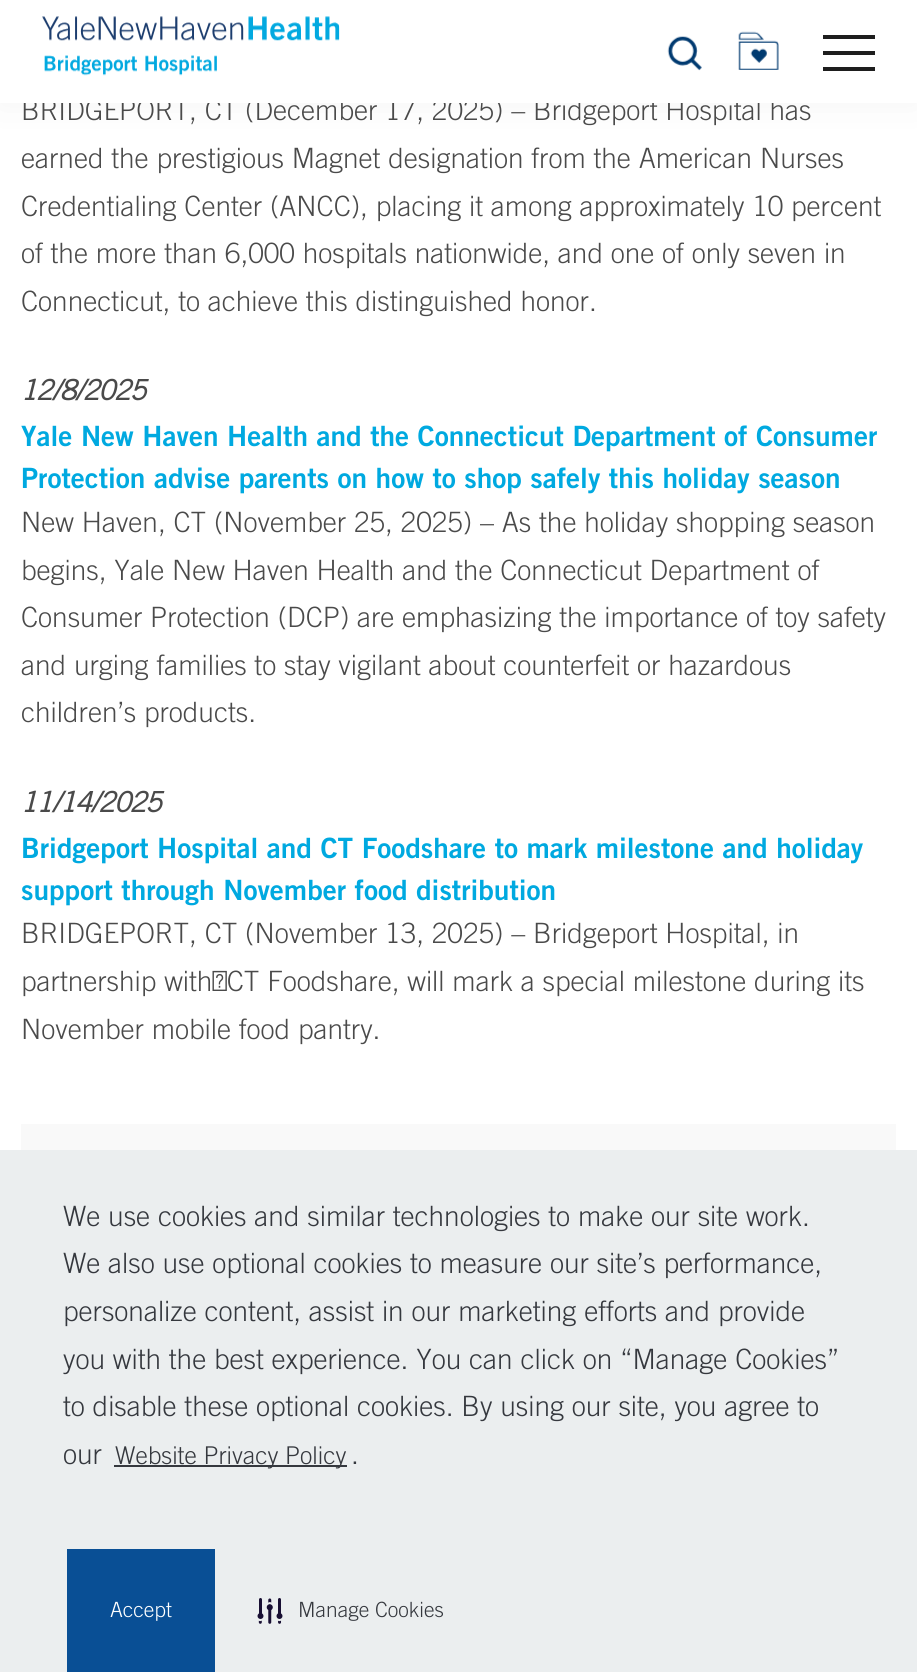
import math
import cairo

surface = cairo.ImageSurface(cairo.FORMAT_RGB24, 917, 1672)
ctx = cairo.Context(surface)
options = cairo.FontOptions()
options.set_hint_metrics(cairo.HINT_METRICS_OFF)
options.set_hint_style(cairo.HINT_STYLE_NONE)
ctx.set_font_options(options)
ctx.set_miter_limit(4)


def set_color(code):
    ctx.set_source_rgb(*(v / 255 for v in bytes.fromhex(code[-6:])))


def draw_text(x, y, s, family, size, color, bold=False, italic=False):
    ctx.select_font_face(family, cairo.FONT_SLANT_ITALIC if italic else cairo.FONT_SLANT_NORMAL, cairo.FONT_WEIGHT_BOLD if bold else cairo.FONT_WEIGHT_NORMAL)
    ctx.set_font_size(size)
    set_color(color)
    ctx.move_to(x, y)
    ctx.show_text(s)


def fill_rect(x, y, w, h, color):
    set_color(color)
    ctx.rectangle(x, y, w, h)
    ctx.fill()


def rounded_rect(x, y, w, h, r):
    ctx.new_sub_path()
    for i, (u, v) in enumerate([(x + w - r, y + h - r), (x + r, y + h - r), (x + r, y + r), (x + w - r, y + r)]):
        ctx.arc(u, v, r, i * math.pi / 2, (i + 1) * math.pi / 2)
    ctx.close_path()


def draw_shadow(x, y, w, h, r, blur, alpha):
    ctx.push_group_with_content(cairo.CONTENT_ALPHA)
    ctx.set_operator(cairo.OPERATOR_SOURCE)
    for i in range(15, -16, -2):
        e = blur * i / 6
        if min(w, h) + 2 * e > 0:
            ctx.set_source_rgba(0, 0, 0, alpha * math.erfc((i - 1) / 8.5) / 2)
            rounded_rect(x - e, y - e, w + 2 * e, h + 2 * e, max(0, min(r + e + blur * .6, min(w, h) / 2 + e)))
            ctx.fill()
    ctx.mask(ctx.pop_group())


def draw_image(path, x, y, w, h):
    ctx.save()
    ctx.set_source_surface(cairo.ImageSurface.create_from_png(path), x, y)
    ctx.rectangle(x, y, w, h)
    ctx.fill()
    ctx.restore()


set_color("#ffffff")
ctx.paint()
set_color("#cbcbcb")
draw_shadow(0, 0, 917, 105, 0, 16, 0.2)
draw_text(21, 120, "BRIDGEPORT, CT (December 17, 2025) – Bridgeport Hospital has", "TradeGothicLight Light", 28, "#4a4a4a")
fill_rect(0, 0, 917, 103, "#ffffff")
draw_image("assets/img1.png", 42, 16, 298, 60)
draw_image("assets/img2.png", 667, 36, 35, 35)
draw_image("assets/img3.png", 738, 31, 41, 39)
fill_rect(823, 35, 52, 4, "#1e1e1e")
fill_rect(823, 51, 52, 4, "#1e1e1e")
fill_rect(823, 67, 52, 4, "#1e1e1e")
draw_text(21, 168, "earned the prestigious Magnet designation from the American Nurses", "TradeGothicLight Light", 28, "#4a4a4a")
draw_text(21, 216, "Credentialing Center (ANCC), placing it among approximately 10 percent", "TradeGothicLight Light", 28, "#4a4a4a")
draw_text(21, 263, "of the more than 6,000 hospitals nationwide, and one of only seven in", "TradeGothicLight Light", 28, "#4a4a4a")
draw_text(21, 311, "Connecticut, to achieve this distinguished honor.", "TradeGothicLight Light", 28, "#4a4a4a")
draw_text(21, 400, "12/8/2025", "TradeGothicLight", 28, "#4a4a4a", bold=True, italic=True)
draw_text(21, 446, "Yale New Haven Health and the Connecticut Department of Consumer", "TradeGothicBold", 28, "#00a9e0", bold=True)
draw_text(21, 488, "Protection advise parents on how to shop safely this holiday season", "TradeGothicBold", 28, "#00a9e0", bold=True)
draw_text(21, 532, "New Haven, CT (November 25, 2025) – As the holiday shopping season", "TradeGothicLight Light", 28, "#4a4a4a")
draw_text(21, 580, "begins, Yale New Haven Health and the Connecticut Department of", "TradeGothicLight Light", 28, "#4a4a4a")
draw_text(21, 627, "Consumer Protection (DCP) are emphasizing the importance of toy safety", "TradeGothicLight Light", 28, "#4a4a4a")
draw_text(21, 675, "and urging families to stay vigilant about counterfeit or hazardous", "TradeGothicLight Light", 28, "#4a4a4a")
draw_text(21, 722, "children’s products.", "TradeGothicLight Light", 28, "#4a4a4a")
draw_text(21, 812, "11/14/2025", "TradeGothicLight", 28, "#4a4a4a", bold=True, italic=True)
draw_text(21, 858, "Bridgeport Hospital and CT Foodshare to mark milestone and holiday", "TradeGothicBold", 28, "#00a9e0", bold=True)
draw_text(21, 900, "support through November food distribution", "TradeGothicBold", 28, "#00a9e0", bold=True)
draw_text(21, 943, "BRIDGEPORT, CT (November 13, 2025) – Bridgeport Hospital, in", "TradeGothicLight Light", 28, "#4a4a4a")
draw_text(21, 991, "partnership with CT Foodshare, will mark a special milestone during its", "TradeGothicLight Light", 28, "#4a4a4a")
draw_text(21, 1039, "November mobile food pantry.", "TradeGothicLight Light", 28, "#4a4a4a")
fill_rect(21, 1124, 875, 26, "#f9f9f9")
fill_rect(0, 1150, 917, 522, "#ebeeef")
draw_text(63, 1226, "We use cookies and similar technologies to make our site work.", "TradeGothicLight Light", 28, "#35383e")
draw_text(63, 1273, "We also use optional cookies to measure our site’s performance,", "TradeGothicLight Light", 28, "#35383e")
draw_text(63, 1321, "personalize content, assist in our marketing efforts and provide", "TradeGothicLight Light", 28, "#35383e")
draw_text(63, 1369, "you with the best experience. You can click on “Manage Cookies”", "TradeGothicLight Light", 28, "#35383e")
draw_text(63, 1416, "to disable these optional cookies. By using our site, you agree to", "TradeGothicLight Light", 28, "#35383e")
draw_text(63, 1464, "our", "TradeGothicLight Light", 28, "#35383e")
fill_rect(114, 1465, 233, 2, "#35383e")
draw_text(115, 1464, "Website Privacy Policy", "TradeGothicLight Light", 24.5, "#35383e")
draw_text(351, 1464, ".", "TradeGothicLight Light", 28, "#35383e")
fill_rect(67, 1549, 148, 123, "#094f95")
draw_text(110, 1617, "Accept", "TradeGothicLight Light", 21, "#ffffff")
draw_image("assets/img4.png", 257, 1598, 26, 26)
draw_text(298, 1617, "Manage Cookies", "TradeGothicLight Light", 21, "#35383e")
surface.write_to_png("output.png")
